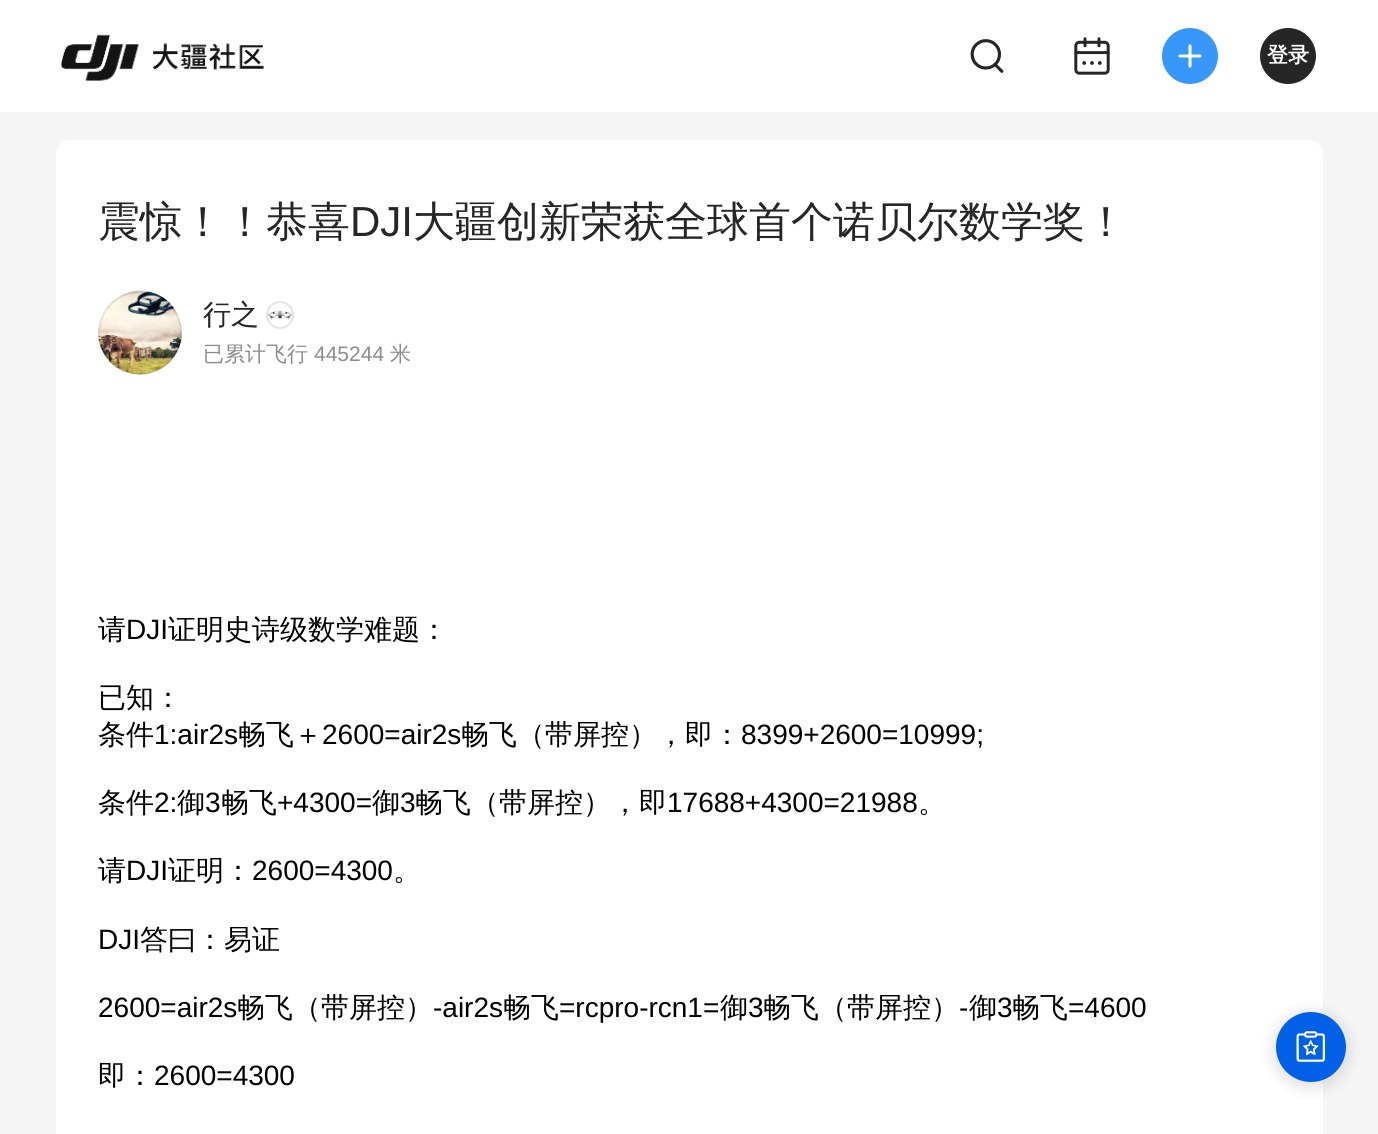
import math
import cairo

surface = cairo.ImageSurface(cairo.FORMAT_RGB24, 1378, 1134)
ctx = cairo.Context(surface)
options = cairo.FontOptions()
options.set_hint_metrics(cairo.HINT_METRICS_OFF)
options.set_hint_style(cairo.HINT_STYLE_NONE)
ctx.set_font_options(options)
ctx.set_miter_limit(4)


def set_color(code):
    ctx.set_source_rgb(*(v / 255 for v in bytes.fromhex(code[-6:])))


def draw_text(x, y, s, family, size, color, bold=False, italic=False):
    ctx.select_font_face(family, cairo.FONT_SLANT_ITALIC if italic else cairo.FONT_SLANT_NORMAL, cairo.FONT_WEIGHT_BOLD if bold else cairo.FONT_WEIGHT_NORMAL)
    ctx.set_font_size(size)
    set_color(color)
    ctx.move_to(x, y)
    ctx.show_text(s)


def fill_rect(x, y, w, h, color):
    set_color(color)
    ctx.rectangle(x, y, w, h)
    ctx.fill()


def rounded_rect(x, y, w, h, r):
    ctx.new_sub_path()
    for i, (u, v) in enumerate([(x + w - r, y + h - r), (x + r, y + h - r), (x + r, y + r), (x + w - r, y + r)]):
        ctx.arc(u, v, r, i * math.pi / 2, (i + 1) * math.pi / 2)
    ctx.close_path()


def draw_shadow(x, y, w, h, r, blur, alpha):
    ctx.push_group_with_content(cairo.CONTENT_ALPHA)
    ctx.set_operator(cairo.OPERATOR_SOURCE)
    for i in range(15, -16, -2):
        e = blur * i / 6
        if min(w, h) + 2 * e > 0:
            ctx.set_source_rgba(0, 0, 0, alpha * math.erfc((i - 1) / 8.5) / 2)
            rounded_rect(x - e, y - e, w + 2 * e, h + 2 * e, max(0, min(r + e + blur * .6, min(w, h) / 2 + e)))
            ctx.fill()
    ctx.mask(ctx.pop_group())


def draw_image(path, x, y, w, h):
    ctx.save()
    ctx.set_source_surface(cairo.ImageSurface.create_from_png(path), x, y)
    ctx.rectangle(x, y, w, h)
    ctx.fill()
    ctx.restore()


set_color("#f5f5f5")
ctx.paint()
fill_rect(0, 0, 1378, 112, "#ffffff")
draw_image("assets/img1.png", 60, 34, 204, 47)
draw_image("assets/img2.png", 970, 39, 34, 34)
draw_image("assets/img3.png", 1074, 37, 36, 38)
set_color("#3798fa")
ctx.arc(1190, 56, 28, 0, 2 * math.pi)
ctx.fill()
draw_image("assets/img4.png", 1178, 44, 24, 24)
set_color("#262626")
ctx.arc(1288, 56, 28, 0, 2 * math.pi)
ctx.fill()
draw_text(1267, 62, "登录", "WenQuanYi Zen Hei", 21, "#ffffff", bold=True)
ctx.new_path()
ctx.move_to(70, 140)
ctx.line_to(1309, 140)
ctx.curve_to(1316.5, 140, 1323, 146.5, 1323, 154)
ctx.line_to(1323, 1134)
ctx.line_to(56, 1134)
ctx.line_to(56, 154)
ctx.curve_to(56, 146.5, 62.5, 140, 70, 140)
ctx.close_path()
ctx.fill()
draw_text(98, 236, "震惊！！恭喜", "WenQuanYi Zen Hei Medium", 42, "#262626")
draw_text(350, 236, "DJI", "Liberation Sans", 42, "#262626")
draw_text(413, 236, "大疆创新荣获全球首个诺贝尔数学奖！", "WenQuanYi Zen Hei Medium", 42, "#262626")
draw_image("assets/img5.png", 98, 290, 84, 85)
ctx.arc(140, 333, 41, 0, 2 * math.pi)
ctx.set_source_rgba(0, 0, 0, 0.08)
ctx.stroke()
draw_text(203, 324, "行之", "WenQuanYi Zen Hei Medium", 28, "#262626")
ctx.new_path()
ctx.arc(280, 315, 13, 0, 2 * math.pi)
set_color("#e4e4e4")
ctx.stroke()
draw_image("assets/img6.png", 268, 310, 24, 10)
draw_text(203, 361, "已累计飞行", "WenQuanYi Zen Hei Medium", 21, "#8c8c8c")
draw_text(314, 361, "445244", "Liberation Sans", 21, "#8c8c8c")
draw_text(390, 361, "米", "WenQuanYi Zen Hei Medium", 21, "#8c8c8c")
draw_text(98, 639, "请", "WenQuanYi Zen Hei Medium", 28, "#000000")
draw_text(126, 639, "DJI", "Liberation Sans", 28, "#000000")
draw_text(168, 639, "证明史诗级数学难题：", "WenQuanYi Zen Hei Medium", 28, "#000000")
draw_text(98, 707, "已知：", "WenQuanYi Zen Hei Medium", 28, "#000000")
draw_text(98, 744, "条件", "WenQuanYi Zen Hei Medium", 28, "#000000")
draw_text(154, 744, "1:air2s", "Liberation Sans", 28, "#000000")
draw_text(238, 744, "畅飞＋", "WenQuanYi Zen Hei Medium", 28, "#000000")
draw_text(322, 744, "2600=air2s", "Liberation Sans", 28, "#000000")
draw_text(461, 744, "畅飞（带屏控），即：", "WenQuanYi Zen Hei Medium", 28, "#000000")
draw_text(741, 744, "8399+2600=10999;", "Liberation Sans", 28, "#000000")
draw_text(98, 812, "条件", "WenQuanYi Zen Hei Medium", 28, "#000000")
draw_text(154, 812, "2:", "Liberation Sans", 28, "#000000")
draw_text(177, 812, "御", "WenQuanYi Zen Hei Medium", 28, "#000000")
draw_text(205, 812, "3", "Liberation Sans", 28, "#000000")
draw_text(221, 812, "畅飞", "WenQuanYi Zen Hei Medium", 28, "#000000")
draw_text(277, 812, "+4300=", "Liberation Sans", 28, "#000000")
draw_text(372, 812, "御", "WenQuanYi Zen Hei Medium", 28, "#000000")
draw_text(400, 812, "3", "Liberation Sans", 28, "#000000")
draw_text(415, 812, "畅飞（带屏控），即", "WenQuanYi Zen Hei Medium", 28, "#000000")
draw_text(667, 812, "17688+4300=21988", "Liberation Sans", 28, "#000000")
draw_text(918, 812, "。", "WenQuanYi Zen Hei Medium", 28, "#000000")
draw_text(98, 880, "请", "WenQuanYi Zen Hei Medium", 28, "#000000")
draw_text(126, 880, "DJI", "Liberation Sans", 28, "#000000")
draw_text(168, 880, "证明：", "WenQuanYi Zen Hei Medium", 28, "#000000")
draw_text(252, 880, "2600=4300", "Liberation Sans", 28, "#000000")
draw_text(393, 880, "。", "WenQuanYi Zen Hei Medium", 28, "#000000")
draw_text(98, 949, "DJI", "Liberation Sans", 28, "#000000")
draw_text(140, 949, "答曰：易证", "WenQuanYi Zen Hei Medium", 28, "#000000")
draw_text(98, 1017, "2600=air2s", "Liberation Sans", 28, "#000000")
draw_text(237, 1017, "畅飞（带屏控）", "WenQuanYi Zen Hei Medium", 28, "#000000")
draw_text(433, 1017, "-air2s", "Liberation Sans", 28, "#000000")
draw_text(503, 1017, "畅飞", "WenQuanYi Zen Hei Medium", 28, "#000000")
draw_text(559, 1017, "=rcpro-rcn1=", "Liberation Sans", 28, "#000000")
draw_text(720, 1017, "御", "WenQuanYi Zen Hei Medium", 28, "#000000")
draw_text(748, 1017, "3", "Liberation Sans", 28, "#000000")
draw_text(763, 1017, "畅飞（带屏控）", "WenQuanYi Zen Hei Medium", 28, "#000000")
draw_text(959, 1017, "-", "Liberation Sans", 28, "#000000")
draw_text(969, 1017, "御", "WenQuanYi Zen Hei Medium", 28, "#000000")
draw_text(997, 1017, "3", "Liberation Sans", 28, "#000000")
draw_text(1012, 1017, "畅飞", "WenQuanYi Zen Hei Medium", 28, "#000000")
draw_text(1068, 1017, "=4600", "Liberation Sans", 28, "#000000")
draw_text(98, 1085, "即：", "WenQuanYi Zen Hei Medium", 28, "#000000")
draw_text(154, 1085, "2600=4300", "Liberation Sans", 28, "#000000")
set_color("#000000")
draw_shadow(1276, 1015, 70, 70, 35, 9, 0.16)
set_color("#0060e7")
ctx.arc(1311, 1047, 35, 0, 2 * math.pi)
ctx.fill()
draw_image("assets/img7.png", 1296, 1031, 29, 31)
surface.write_to_png("output.png")
